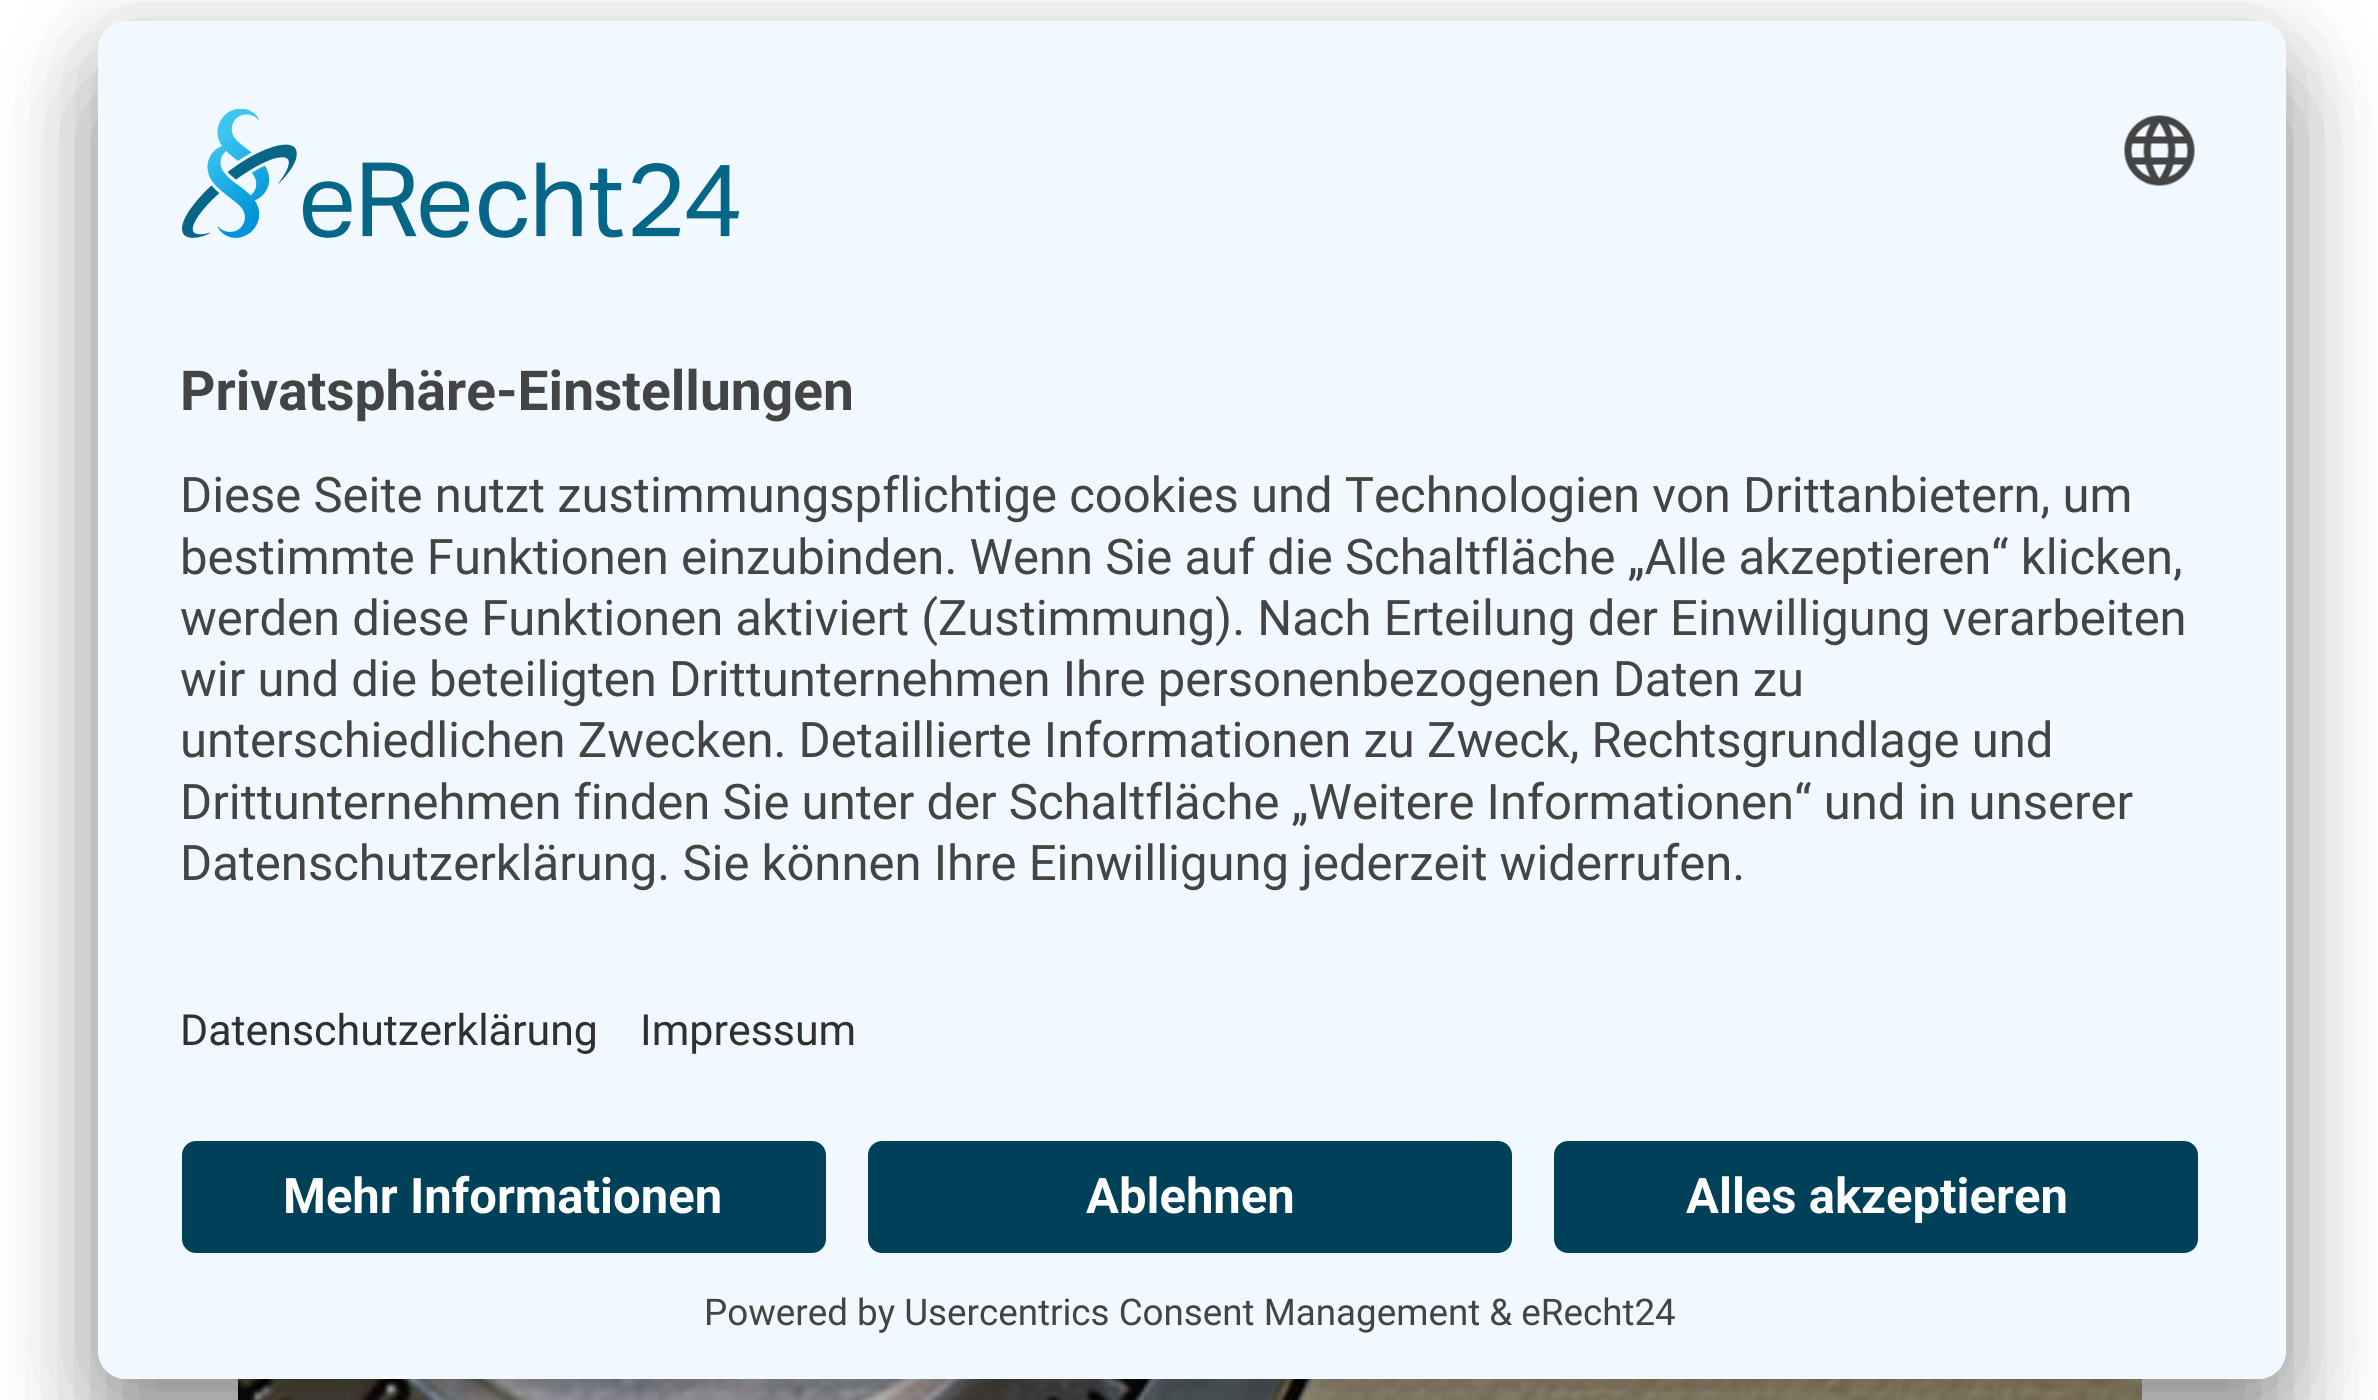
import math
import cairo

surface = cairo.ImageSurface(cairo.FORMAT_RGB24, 2378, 1400)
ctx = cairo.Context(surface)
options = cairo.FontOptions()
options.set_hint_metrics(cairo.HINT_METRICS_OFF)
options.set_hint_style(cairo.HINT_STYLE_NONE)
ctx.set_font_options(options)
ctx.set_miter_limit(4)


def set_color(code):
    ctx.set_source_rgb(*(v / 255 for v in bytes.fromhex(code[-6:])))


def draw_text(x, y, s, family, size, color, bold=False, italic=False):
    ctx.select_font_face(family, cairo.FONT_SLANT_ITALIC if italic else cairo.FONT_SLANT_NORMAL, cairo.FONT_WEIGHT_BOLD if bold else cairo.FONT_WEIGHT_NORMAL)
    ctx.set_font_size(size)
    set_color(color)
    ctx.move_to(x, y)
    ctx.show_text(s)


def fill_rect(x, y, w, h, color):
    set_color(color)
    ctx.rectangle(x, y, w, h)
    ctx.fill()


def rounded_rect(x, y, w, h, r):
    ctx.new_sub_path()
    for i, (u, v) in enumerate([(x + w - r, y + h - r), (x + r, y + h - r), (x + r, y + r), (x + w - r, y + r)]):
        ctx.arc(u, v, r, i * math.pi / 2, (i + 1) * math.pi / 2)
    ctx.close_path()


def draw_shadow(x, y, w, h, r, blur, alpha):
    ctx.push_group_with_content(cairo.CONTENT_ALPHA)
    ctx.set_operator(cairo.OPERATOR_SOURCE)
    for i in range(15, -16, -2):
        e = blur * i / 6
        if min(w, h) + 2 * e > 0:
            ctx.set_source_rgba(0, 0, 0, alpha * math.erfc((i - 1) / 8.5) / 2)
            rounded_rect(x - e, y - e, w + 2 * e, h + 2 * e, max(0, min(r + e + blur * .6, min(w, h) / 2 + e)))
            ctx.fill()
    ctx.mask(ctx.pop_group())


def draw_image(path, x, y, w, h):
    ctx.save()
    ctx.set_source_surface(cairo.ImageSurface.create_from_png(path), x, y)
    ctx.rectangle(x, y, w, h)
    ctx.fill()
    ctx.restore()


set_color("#ffffff")
ctx.paint()
draw_image("assets/img3.png", 238, 1379, 1904, 21)
set_color("#000000")
draw_shadow(98, 91, 2188, 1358, 28, 49, 0.3)
draw_shadow(98, 39, 2188, 1358, 28, 45.5, 0.22)
set_color("#f1f8ff")
rounded_rect(98, 21, 2188, 1358, 28)
ctx.fill()
ctx.save()
rounded_rect(98, 21, 2188, 1358, 28)
ctx.clip()
ctx.new_path()
ctx.move_to(126, 21)
ctx.line_to(2258, 21)
ctx.curve_to(2273.5, 21, 2286, 33.5, 2286, 49)
ctx.line_to(2286, 1113)
ctx.line_to(98, 1113)
ctx.line_to(98, 49)
ctx.curve_to(98, 33.5, 110.5, 21, 126, 21)
ctx.close_path()
ctx.clip()
fill_rect(98, 25, 2188, 1088, "#f1f8ff")
ctx.restore()
draw_image("assets/img1.png", 182, 109, 557, 129)
draw_image("assets/img2.png", 2124, 115, 71, 71)
draw_text(180, 410, "Privatsphäre-Einstellungen", "Roboto", 55.1, "#444444", bold=True)
draw_text(180, 512, "Diese Seite nutzt zustimmungspflichtige cookies und Technologien von Drittanbietern, um", "Roboto", 49, "#444444")
draw_text(180, 574, "bestimmte Funktionen einzubinden. Wenn Sie auf die Schaltfläche „Alle akzeptieren“ klicken,", "Roboto", 49, "#444444")
draw_text(180, 635, "werden diese Funktionen aktiviert (Zustimmung). Nach Erteilung der Einwilligung verarbeiten", "Roboto", 49, "#444444")
draw_text(180, 696, "wir und die beteiligten Drittunternehmen Ihre personenbezogenen Daten zu", "Roboto", 49, "#444444")
draw_text(180, 757, "unterschiedlichen Zwecken. Detaillierte Informationen zu Zweck, Rechtsgrundlage und", "Roboto", 49, "#444444")
draw_text(180, 819, "Drittunternehmen finden Sie unter der Schaltfläche „Weitere Informationen“ und in unserer", "Roboto", 49, "#444444")
draw_text(180, 880, "Datenschutzerklärung. Sie können Ihre Einwilligung jederzeit widerrufen.", "Roboto", 49, "#444444")
draw_text(180, 1045, "Datenschutzerklärung", "Roboto", 42.9, "#303030")
draw_text(640, 1045, "Impressum", "Roboto", 42.9, "#303030")
set_color("#f1f8ff")
ctx.new_path()
ctx.move_to(98, 1113)
ctx.line_to(2286, 1113)
ctx.line_to(2286, 1351)
ctx.curve_to(2286, 1366.5, 2273.5, 1379, 2258, 1379)
ctx.line_to(126, 1379)
ctx.curve_to(110.5, 1379, 98, 1366.5, 98, 1351)
ctx.close_path()
ctx.fill()
set_color("#004059")
rounded_rect(182, 1141, 644, 112, 14)
ctx.fill()
draw_text(283, 1213, "Mehr Informationen", "Roboto", 49, "#ffffff", bold=True)
set_color("#004059")
rounded_rect(868, 1141, 644, 112, 14)
ctx.fill()
draw_text(1086, 1213, "Ablehnen", "Roboto", 49, "#ffffff", bold=True)
set_color("#004059")
rounded_rect(1554, 1141, 644, 112, 14)
ctx.fill()
draw_text(1686, 1213, "Alles akzeptieren", "Roboto", 49, "#ffffff", bold=True)
draw_text(704, 1325, "Powered by Usercentrics Consent Management & eRecht24", "Roboto", 36.75, "#444444")
surface.write_to_png("output.png")
